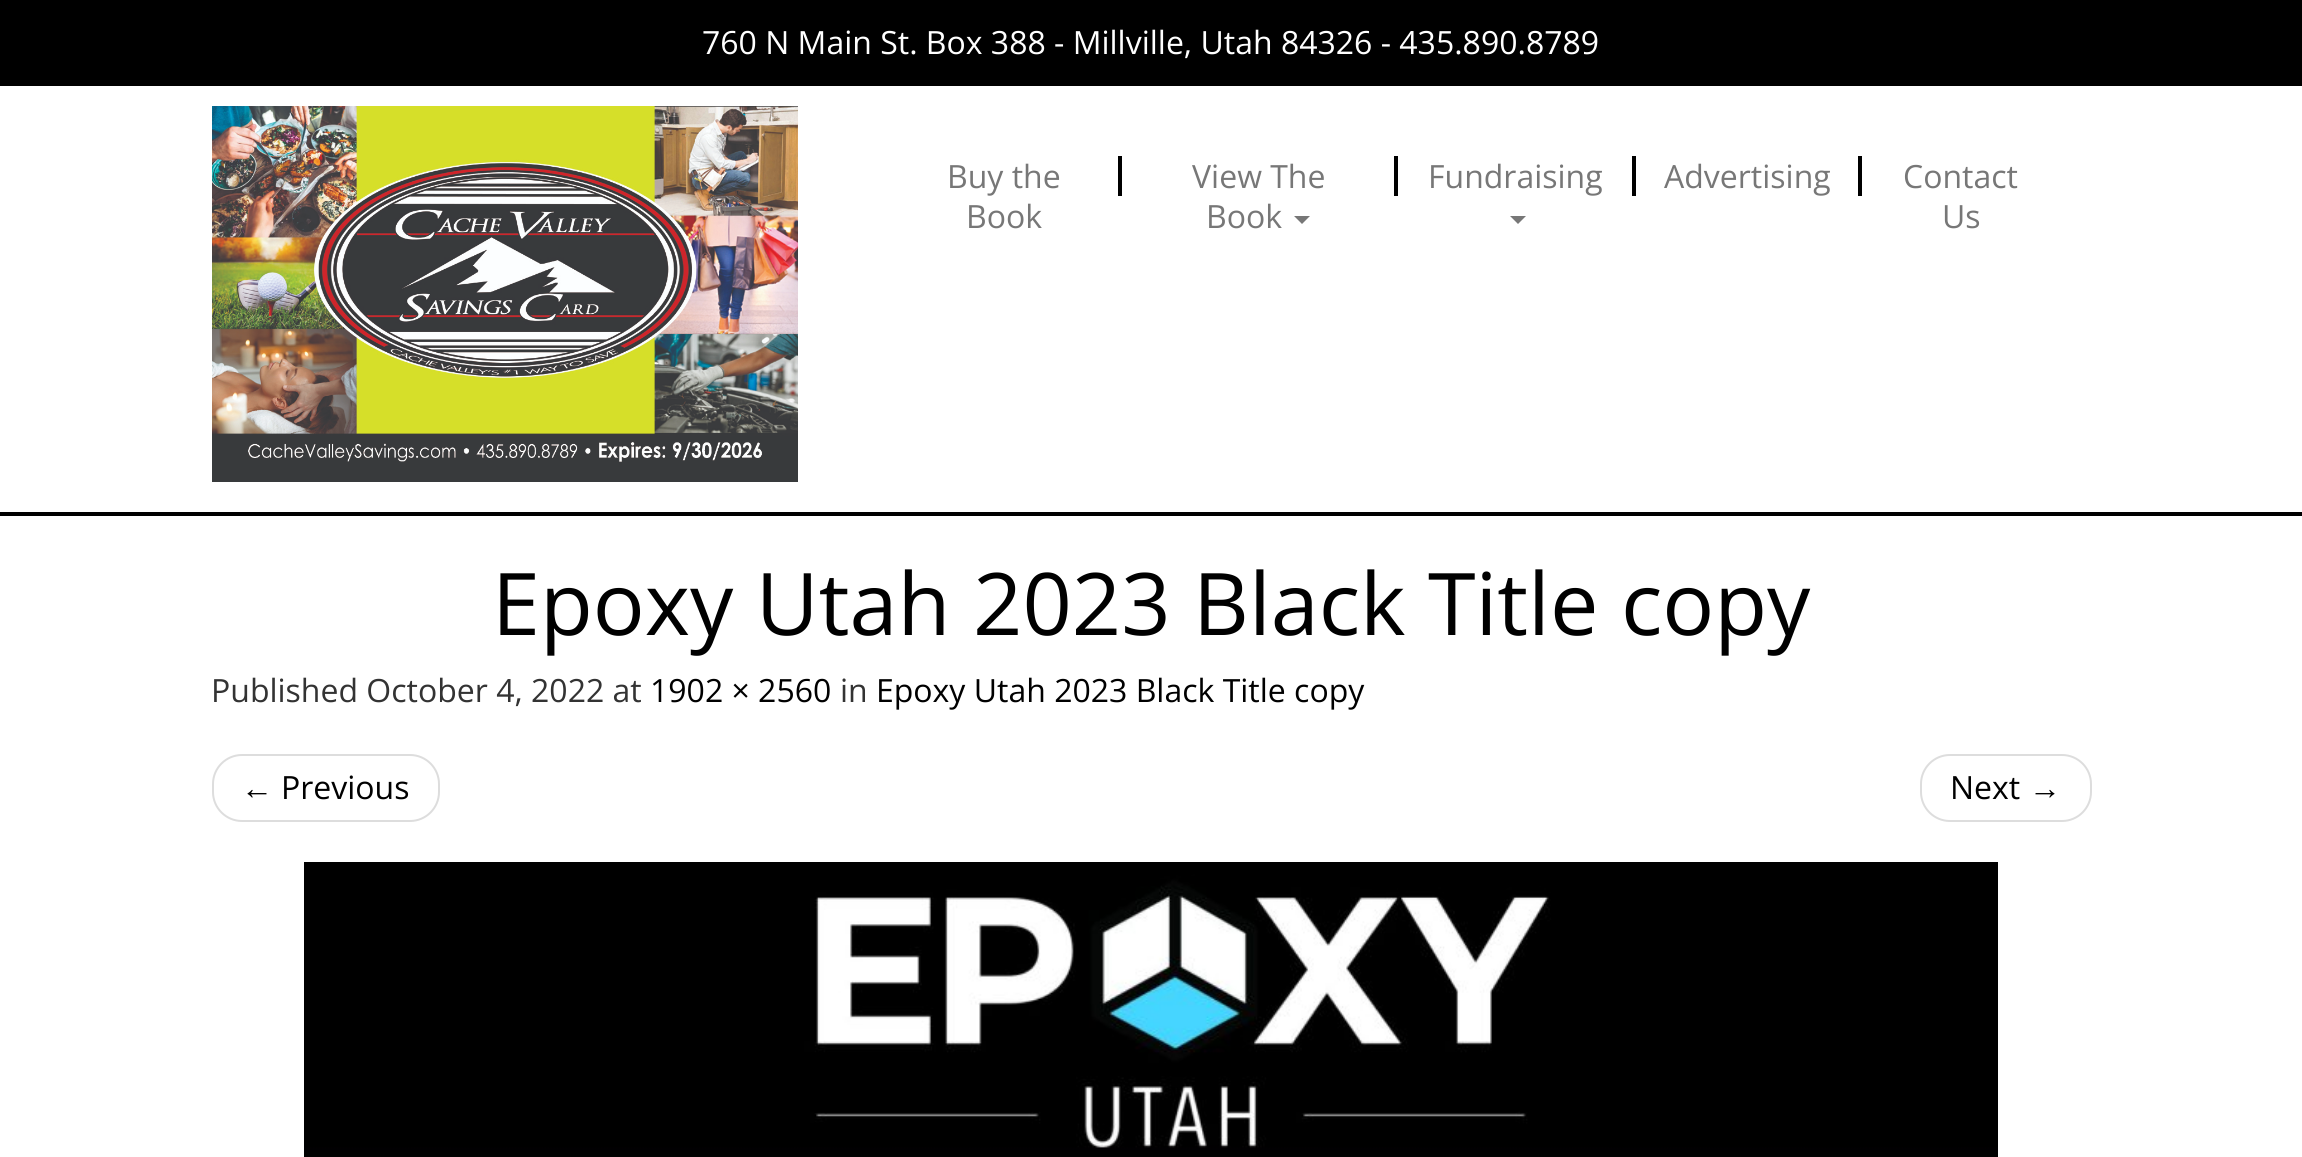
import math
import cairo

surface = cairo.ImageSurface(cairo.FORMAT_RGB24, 2302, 1157)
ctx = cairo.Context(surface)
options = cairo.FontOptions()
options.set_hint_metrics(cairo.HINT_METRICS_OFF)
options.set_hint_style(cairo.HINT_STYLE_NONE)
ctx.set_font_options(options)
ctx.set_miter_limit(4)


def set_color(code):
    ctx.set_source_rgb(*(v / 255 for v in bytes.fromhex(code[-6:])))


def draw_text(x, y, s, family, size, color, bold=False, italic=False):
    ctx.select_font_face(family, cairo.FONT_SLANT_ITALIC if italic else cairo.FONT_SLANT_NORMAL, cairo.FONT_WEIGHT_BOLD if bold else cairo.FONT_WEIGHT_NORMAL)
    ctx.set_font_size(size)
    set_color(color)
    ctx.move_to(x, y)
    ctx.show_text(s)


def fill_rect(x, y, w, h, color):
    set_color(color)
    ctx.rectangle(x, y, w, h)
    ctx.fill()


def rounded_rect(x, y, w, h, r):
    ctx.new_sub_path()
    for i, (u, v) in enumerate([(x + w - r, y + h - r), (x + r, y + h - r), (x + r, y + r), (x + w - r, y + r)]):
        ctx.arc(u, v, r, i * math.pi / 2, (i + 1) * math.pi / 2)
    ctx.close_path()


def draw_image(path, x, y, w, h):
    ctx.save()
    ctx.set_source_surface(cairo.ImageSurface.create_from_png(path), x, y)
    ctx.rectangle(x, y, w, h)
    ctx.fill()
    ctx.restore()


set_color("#ffffff")
ctx.paint()
fill_rect(0, 512, 2302, 4, "#000000")
fill_rect(0, 0, 2302, 86, "#000000")
draw_text(702, 54, "760 N Main St. Box 388 - Millville, Utah 84326 - 435.890.8789", "Open Sans", 32, "#ffffff")
draw_image("assets/img1.png", 212, 106, 586, 376)
draw_text(947, 188, "Buy the", "Open Sans", 32, "#777777")
draw_text(966, 228, "Book", "Open Sans", 32, "#777777")
fill_rect(1118, 156, 4, 40, "#000000")
draw_text(1192, 188, "View The", "Open Sans", 32, "#777777")
draw_text(1206, 228, "Book", "Open Sans", 32, "#777777")
ctx.new_path()
ctx.move_to(1294, 216)
ctx.line_to(1310, 216)
ctx.line_to(1302, 224)
ctx.close_path()
ctx.fill()
fill_rect(1394, 156, 4, 40, "#000000")
draw_text(1428, 188, "Fundraising", "Open Sans", 32, "#777777")
ctx.new_path()
ctx.move_to(1510, 216)
ctx.line_to(1526, 216)
ctx.line_to(1518, 224)
ctx.close_path()
ctx.fill()
fill_rect(1632, 156, 4, 40, "#000000")
draw_text(1664, 188, "Advertising", "Open Sans", 32, "#777777")
fill_rect(1858, 156, 4, 40, "#000000")
draw_text(1903, 188, "Contact", "Open Sans", 32, "#777777")
draw_text(1942, 228, "Us", "Open Sans", 32, "#777777")
draw_text(492, 635, "Epoxy Utah 2023 Black Title copy", "Open Sans", 86.4, "#000000")
draw_text(211, 702, "Published October 4, 2022 at", "Open Sans", 32, "#333333")
draw_text(650, 702, "1902 × 2560", "Open Sans", 32, "#000000")
draw_text(840, 702, "in", "Open Sans", 32, "#333333")
draw_text(876, 702, "Epoxy Utah 2023 Black Title copy", "Open Sans", 32, "#000000")
rounded_rect(213, 755, 226, 66, 29)
set_color("#dddddd")
ctx.stroke()
draw_text(241, 799, "←", "Liberation Sans", 32, "#000000")
draw_text(281, 799, "Previous", "Open Sans", 32, "#000000")
rounded_rect(1921, 755, 170, 66, 29)
set_color("#dddddd")
ctx.stroke()
draw_text(1950, 799, "Next", "Open Sans", 32, "#000000")
draw_text(2029, 799, "→", "Liberation Sans", 32, "#000000")
draw_image("assets/img2.png", 304, 862, 1694, 295)
surface.write_to_png("output.png")
